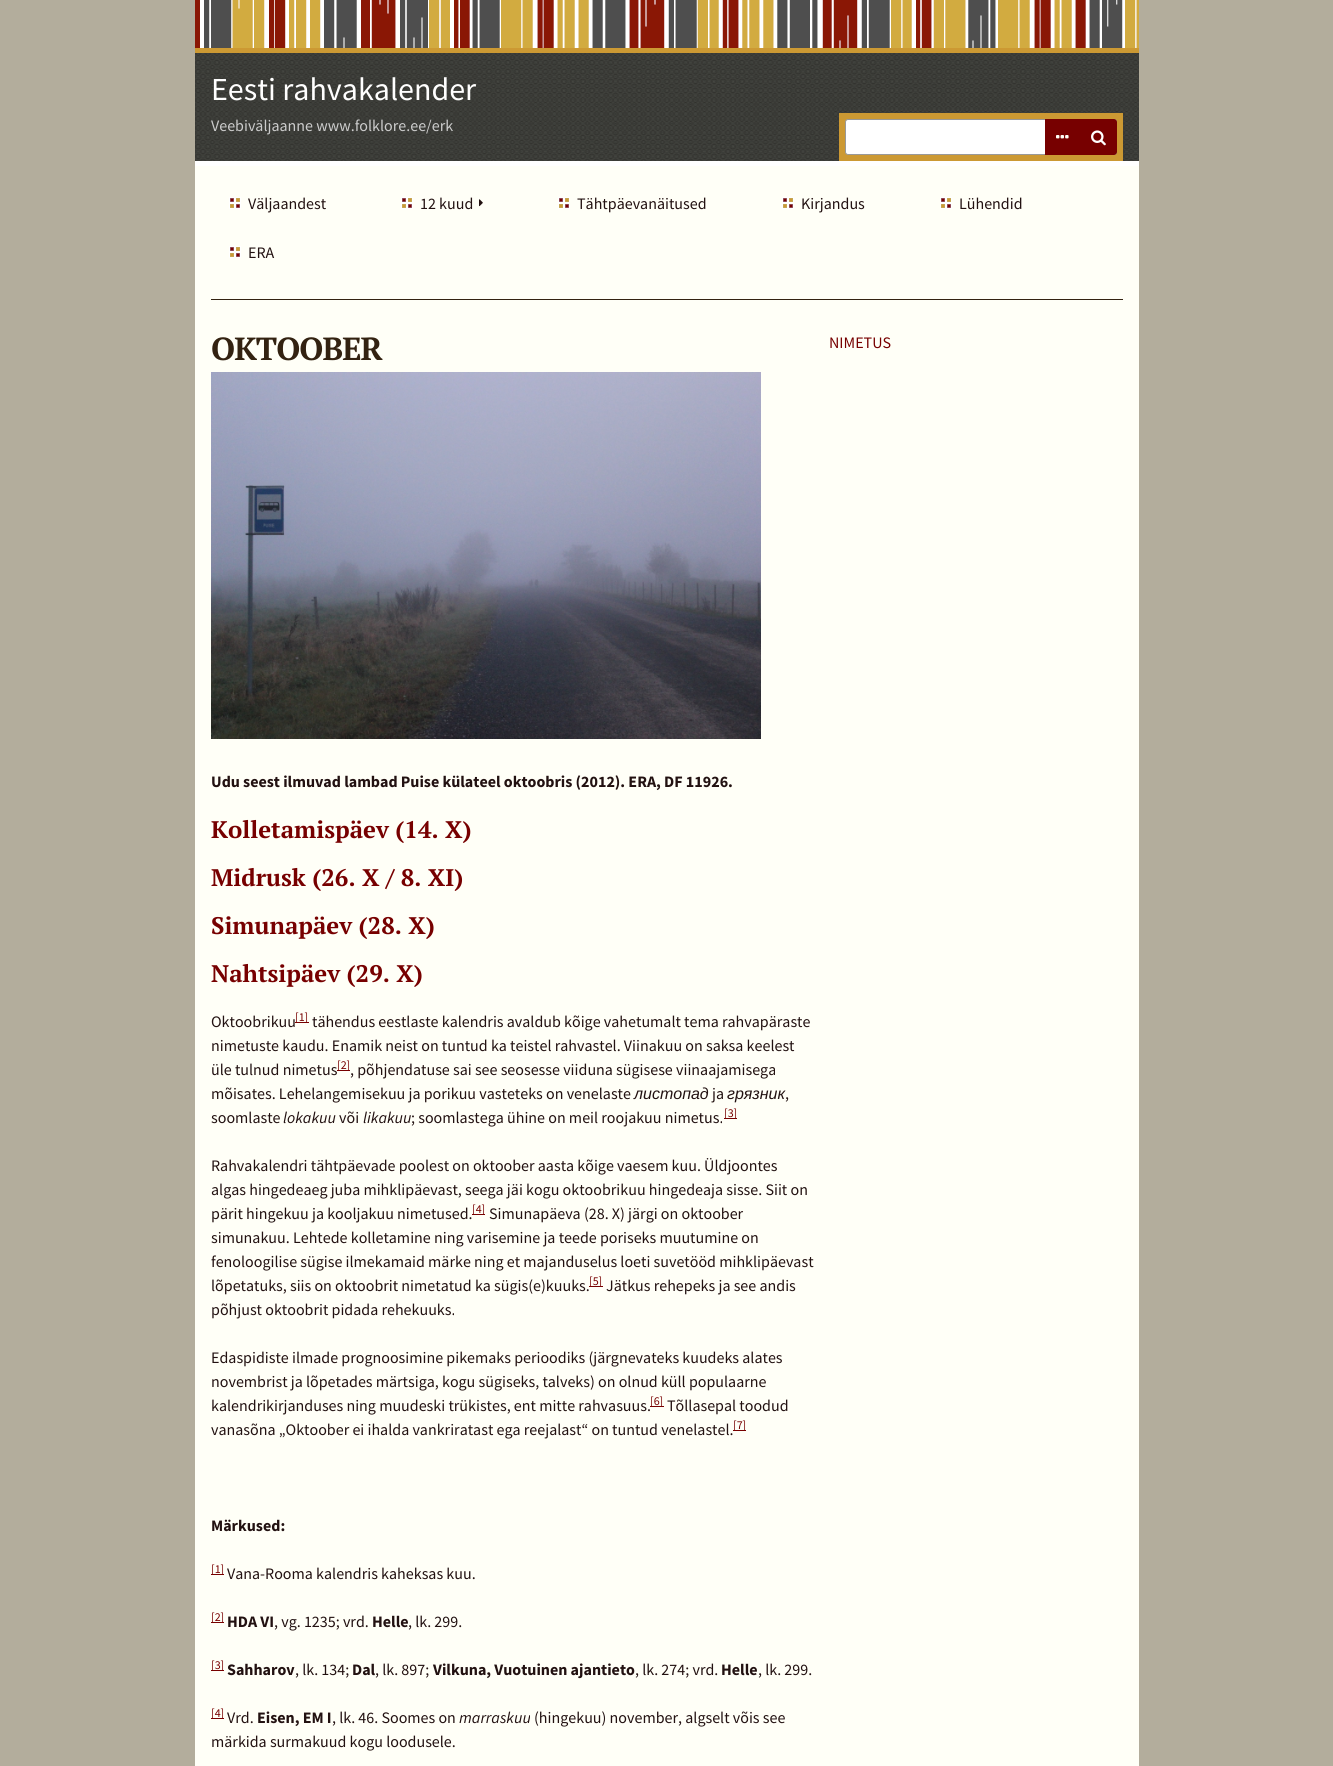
import math
import cairo

surface = cairo.ImageSurface(cairo.FORMAT_RGB24, 1333, 1766)
ctx = cairo.Context(surface)
options = cairo.FontOptions()
options.set_hint_metrics(cairo.HINT_METRICS_OFF)
options.set_hint_style(cairo.HINT_STYLE_NONE)
ctx.set_font_options(options)
ctx.set_miter_limit(4)


def set_color(code):
    ctx.set_source_rgb(*(v / 255 for v in bytes.fromhex(code[-6:])))


def draw_text(x, y, s, family, size, color, bold=False, italic=False):
    ctx.select_font_face(family, cairo.FONT_SLANT_ITALIC if italic else cairo.FONT_SLANT_NORMAL, cairo.FONT_WEIGHT_BOLD if bold else cairo.FONT_WEIGHT_NORMAL)
    ctx.set_font_size(size)
    set_color(color)
    ctx.move_to(x, y)
    ctx.show_text(s)


def draw_spaced(x, y, s, letter, word):
    ctx.move_to(x, y)
    for ch in s:
        ctx.show_text(ch)
        ctx.rel_move_to(letter + word * (ch == ' '), 0)


def fill_rect(x, y, w, h, color):
    set_color(color)
    ctx.rectangle(x, y, w, h)
    ctx.fill()


def rounded_rect(x, y, w, h, r):
    ctx.new_sub_path()
    for i, (u, v) in enumerate([(x + w - r, y + h - r), (x + r, y + h - r), (x + r, y + r), (x + w - r, y + r)]):
        ctx.arc(u, v, r, i * math.pi / 2, (i + 1) * math.pi / 2)
    ctx.close_path()


def draw_image(path, x, y, w, h):
    ctx.save()
    ctx.set_source_surface(cairo.ImageSurface.create_from_png(path), x, y)
    ctx.rectangle(x, y, w, h)
    ctx.fill()
    ctx.restore()


set_color("#b3ad9c")
ctx.paint()
fill_rect(195, 166, 944, 1600, "#fffff7")
draw_image("assets/img1.png", 195, 0, 944, 48)
draw_image("assets/img2.png", 195, 53, 944, 108)
fill_rect(195, 48, 944, 5, "#cc9933")
fill_rect(195, 161, 944, 5, "#ffffff")
draw_text(211, 100, "Eesti rahvakalender", "Source Sans Pro", 32, "#ffffff")
draw_text(211, 131, "Veebiväljaanne www.folklore.ee/erk", "Source Sans Pro", 16, "#cccccc")
fill_rect(839, 113, 284, 48, "#cc9933")
set_color("#ffffff")
rounded_rect(845.5, 119.5, 271, 35, 2.5)
ctx.fill_preserve()
set_color("#999999")
ctx.set_line_width(1)
ctx.stroke()
fill_rect(1045, 119, 36, 36, "#770000")
draw_image("assets/img3.png", 1056, 135, 13, 4)
ctx.new_path()
ctx.move_to(1081, 119)
ctx.line_to(1114, 119)
ctx.curve_to(1115.5, 119, 1117, 120.5, 1117, 122)
ctx.line_to(1117, 152)
ctx.curve_to(1117, 153.5, 1115.5, 155, 1114, 155)
ctx.line_to(1081, 155)
ctx.close_path()
ctx.fill()
draw_image("assets/img4.png", 1091, 130, 15, 16)
fill_rect(211, 299, 912, 1, "#332211")
draw_image("assets/img5.png", 229, 197, 12, 12)
draw_text(248, 209, "Väljaandest", "Source Sans Pro", 16, "#221111")
draw_image("assets/img5.png", 401, 197, 12, 12)
draw_text(420, 209, "12 kuud", "Source Sans Pro", 16, "#221111")
draw_image("assets/img6.png", 479, 199, 4, 8)
draw_image("assets/img5.png", 558, 197, 12, 12)
draw_text(577, 209, "Tähtpäevanäitused", "Source Sans Pro", 16, "#221111")
draw_image("assets/img5.png", 782, 197, 12, 12)
draw_text(801, 209, "Kirjandus", "Source Sans Pro", 16, "#221111")
draw_image("assets/img5.png", 940, 197, 12, 12)
draw_text(959, 209, "Lühendid", "Source Sans Pro", 16, "#221111")
draw_image("assets/img5.png", 229, 246, 12, 12)
draw_text(248, 258, "ERA", "Source Sans Pro", 16, "#221111")
ctx.select_font_face("PT Serif", cairo.FONT_SLANT_NORMAL, cairo.FONT_WEIGHT_BOLD)
ctx.set_font_size(32)
set_color("#332211")
draw_spaced(211, 360, "OKTOOBER", -1, 0)
draw_text(829, 348, "NIMETUS", "Source Sans Pro", 16, "#770000")
draw_image("assets/img7.png", 211, 372, 550, 367)
draw_text(211, 787, "Udu seest ilmuvad lambad Puise külateel oktoobris (2012). ERA, DF 11926.", "Source Sans Pro", 16, "#221111", bold=True)
draw_text(211, 838, "Kolletamispäev (14. X)", "PT Serif", 24, "#770000", bold=True)
draw_text(211, 886, "Midrusk (26. X / 8. XI)", "PT Serif", 24, "#770000", bold=True)
draw_text(211, 934, "Simunapäev (28. X)", "PT Serif", 24, "#770000", bold=True)
draw_text(211, 982, "Nahtsipäev (29. X)", "PT Serif", 24, "#770000", bold=True)
draw_text(211, 1027, "Oktoobrikuu", "Source Sans Pro", 16, "#221111")
fill_rect(295, 1022, 14, 1, "#770000")
draw_text(295, 1021, "[1]", "Source Sans Pro", 12, "#770000")
draw_text(312, 1027, "tähendus eestlaste kalendris avaldub kõige vahetumalt tema rahvapäraste", "Source Sans Pro", 16, "#221111")
draw_text(211, 1051, "nimetuste kaudu. Enamik neist on tuntud ka teistel rahvastel. Viinakuu on saksa keelest", "Source Sans Pro", 16, "#221111")
draw_text(211, 1075, "üle tulnud nimetus", "Source Sans Pro", 16, "#221111")
fill_rect(337, 1070, 13, 1, "#770000")
draw_text(337, 1069, "[2]", "Source Sans Pro", 12, "#770000")
draw_text(350, 1075, ", põhjendatuse sai see seosesse viiduna sügisese viinaajamisega", "Source Sans Pro", 16, "#221111")
draw_text(211, 1099, "mõisates. Lehelangemisekuu ja porikuu vasteteks on venelaste", "Source Sans Pro", 16, "#221111")
draw_text(634, 1099, "листопад", "Liberation Sans", 16, "#221111", italic=True)
draw_text(712, 1099, "ja", "Source Sans Pro", 16, "#221111")
draw_text(727, 1099, "грязник", "Liberation Sans", 16, "#221111", italic=True)
draw_text(785, 1099, ",", "Source Sans Pro", 16, "#221111")
draw_text(211, 1123, "soomlaste", "Source Sans Pro", 16, "#221111")
draw_text(283, 1123, "lokakuu", "Source Sans Pro", 16, "#221111", italic=True)
draw_text(339, 1123, "või", "Source Sans Pro", 16, "#221111")
draw_text(363, 1123, "likakuu", "Source Sans Pro", 16, "#221111", italic=True)
draw_text(411, 1123, "; soomlastega ühine on meil roojakuu nimetus.", "Source Sans Pro", 16, "#221111")
fill_rect(724, 1118, 13, 1, "#770000")
draw_text(724, 1117, "[3]", "Source Sans Pro", 12, "#770000")
draw_text(211, 1171, "Rahvakalendri tähtpäevade poolest on oktoober aasta kõige vaesem kuu. Üldjoontes", "Source Sans Pro", 16, "#221111")
draw_text(211, 1195, "algas hingedeaeg juba mihklipäevast, seega jäi kogu oktoobrikuu hingedeaja sisse. Siit on", "Source Sans Pro", 16, "#221111")
draw_text(211, 1219, "pärit hingekuu ja kooljakuu nimetused.", "Source Sans Pro", 16, "#221111")
fill_rect(472, 1214, 13, 1, "#770000")
draw_text(472, 1213, "[4]", "Source Sans Pro", 12, "#770000")
draw_text(489, 1219, "Simunapäeva (28. X) järgi on oktoober", "Source Sans Pro", 16, "#221111")
draw_text(211, 1243, "simunakuu. Lehtede kolletamine ning varisemine ja teede poriseks muutumine on", "Source Sans Pro", 16, "#221111")
draw_text(211, 1267, "fenoloogilise sügise ilmekamaid märke ning et majanduselus loeti suvetööd mihklipäevast", "Source Sans Pro", 16, "#221111")
draw_text(211, 1291, "lõpetatuks, siis on oktoobrit nimetatud ka sügis(e)kuuks.", "Source Sans Pro", 16, "#221111")
fill_rect(589, 1286, 14, 1, "#770000")
draw_text(589, 1285, "[5]", "Source Sans Pro", 12, "#770000")
draw_text(606, 1291, "Jätkus rehepeks ja see andis", "Source Sans Pro", 16, "#221111")
draw_text(211, 1315, "põhjust oktoobrit pidada rehekuuks.", "Source Sans Pro", 16, "#221111")
draw_text(211, 1363, "Edaspidiste ilmade prognoosimine pikemaks perioodiks (järgnevateks kuudeks alates", "Source Sans Pro", 16, "#221111")
draw_text(211, 1387, "novembrist ja lõpetades märtsiga, kogu sügiseks, talveks) on olnud küll populaarne", "Source Sans Pro", 16, "#221111")
draw_text(211, 1411, "kalendrikirjanduses ning muudeski trükistes, ent mitte rahvasuus.", "Source Sans Pro", 16, "#221111")
fill_rect(650, 1406, 14, 1, "#770000")
draw_text(650, 1405, "[6]", "Source Sans Pro", 12, "#770000")
draw_text(667, 1411, "Tõllasepal toodud", "Source Sans Pro", 16, "#221111")
draw_text(211, 1435, "vanasõna „Oktoober ei ihalda vankriratast ega reejalast“ on tuntud venelastel.", "Source Sans Pro", 16, "#221111")
fill_rect(733, 1430, 13, 1, "#770000")
draw_text(733, 1429, "[7]", "Source Sans Pro", 12, "#770000")
draw_text(211, 1531, "Märkused:", "Source Sans Pro", 16, "#221111", bold=True)
fill_rect(211, 1574, 13, 1, "#770000")
draw_text(211, 1573, "[1]", "Source Sans Pro", 12, "#770000")
draw_text(227, 1579, "Vana-Rooma kalendris kaheksas kuu.", "Source Sans Pro", 16, "#221111")
fill_rect(211, 1622, 13, 1, "#770000")
draw_text(211, 1621, "[2]", "Source Sans Pro", 12, "#770000")
draw_text(227, 1627, "HDA VI", "Source Sans Pro", 16, "#221111", bold=True)
draw_text(274, 1627, ", vg. 1235; vrd.", "Source Sans Pro", 16, "#221111")
draw_text(372, 1627, "Helle", "Source Sans Pro", 16, "#221111", bold=True)
draw_text(408, 1627, ", lk. 299.", "Source Sans Pro", 16, "#221111")
fill_rect(211, 1670, 13, 1, "#770000")
draw_text(211, 1669, "[3]", "Source Sans Pro", 12, "#770000")
draw_text(227, 1675, "Sahharov", "Source Sans Pro", 16, "#221111", bold=True)
draw_text(295, 1675, ", lk. 134;", "Source Sans Pro", 16, "#221111")
draw_text(352, 1675, "Dal", "Source Sans Pro", 16, "#221111", bold=True)
draw_text(375, 1675, ", lk. 897;", "Source Sans Pro", 16, "#221111")
draw_text(433, 1675, "Vilkuna, Vuotuinen ajantieto", "Source Sans Pro", 16, "#221111", bold=True)
draw_text(635, 1675, ", lk. 274; vrd.", "Source Sans Pro", 16, "#221111")
draw_text(721, 1675, "Helle", "Source Sans Pro", 16, "#221111", bold=True)
draw_text(758, 1675, ", lk. 299.", "Source Sans Pro", 16, "#221111")
fill_rect(211, 1718, 13, 1, "#770000")
draw_text(211, 1717, "[4]", "Source Sans Pro", 12, "#770000")
draw_text(227, 1723, "Vrd.", "Source Sans Pro", 16, "#221111")
draw_text(257, 1723, "Eisen, EM I", "Source Sans Pro", 16, "#221111", bold=True)
draw_text(332, 1723, ", lk. 46. Soomes on", "Source Sans Pro", 16, "#221111")
draw_text(459, 1723, "marraskuu", "Source Sans Pro", 16, "#221111", italic=True)
draw_text(534, 1723, "(hingekuu) november, algselt võis see", "Source Sans Pro", 16, "#221111")
draw_text(211, 1747, "märkida surmakuud kogu loodusele.", "Source Sans Pro", 16, "#221111")
surface.write_to_png("output.png")
